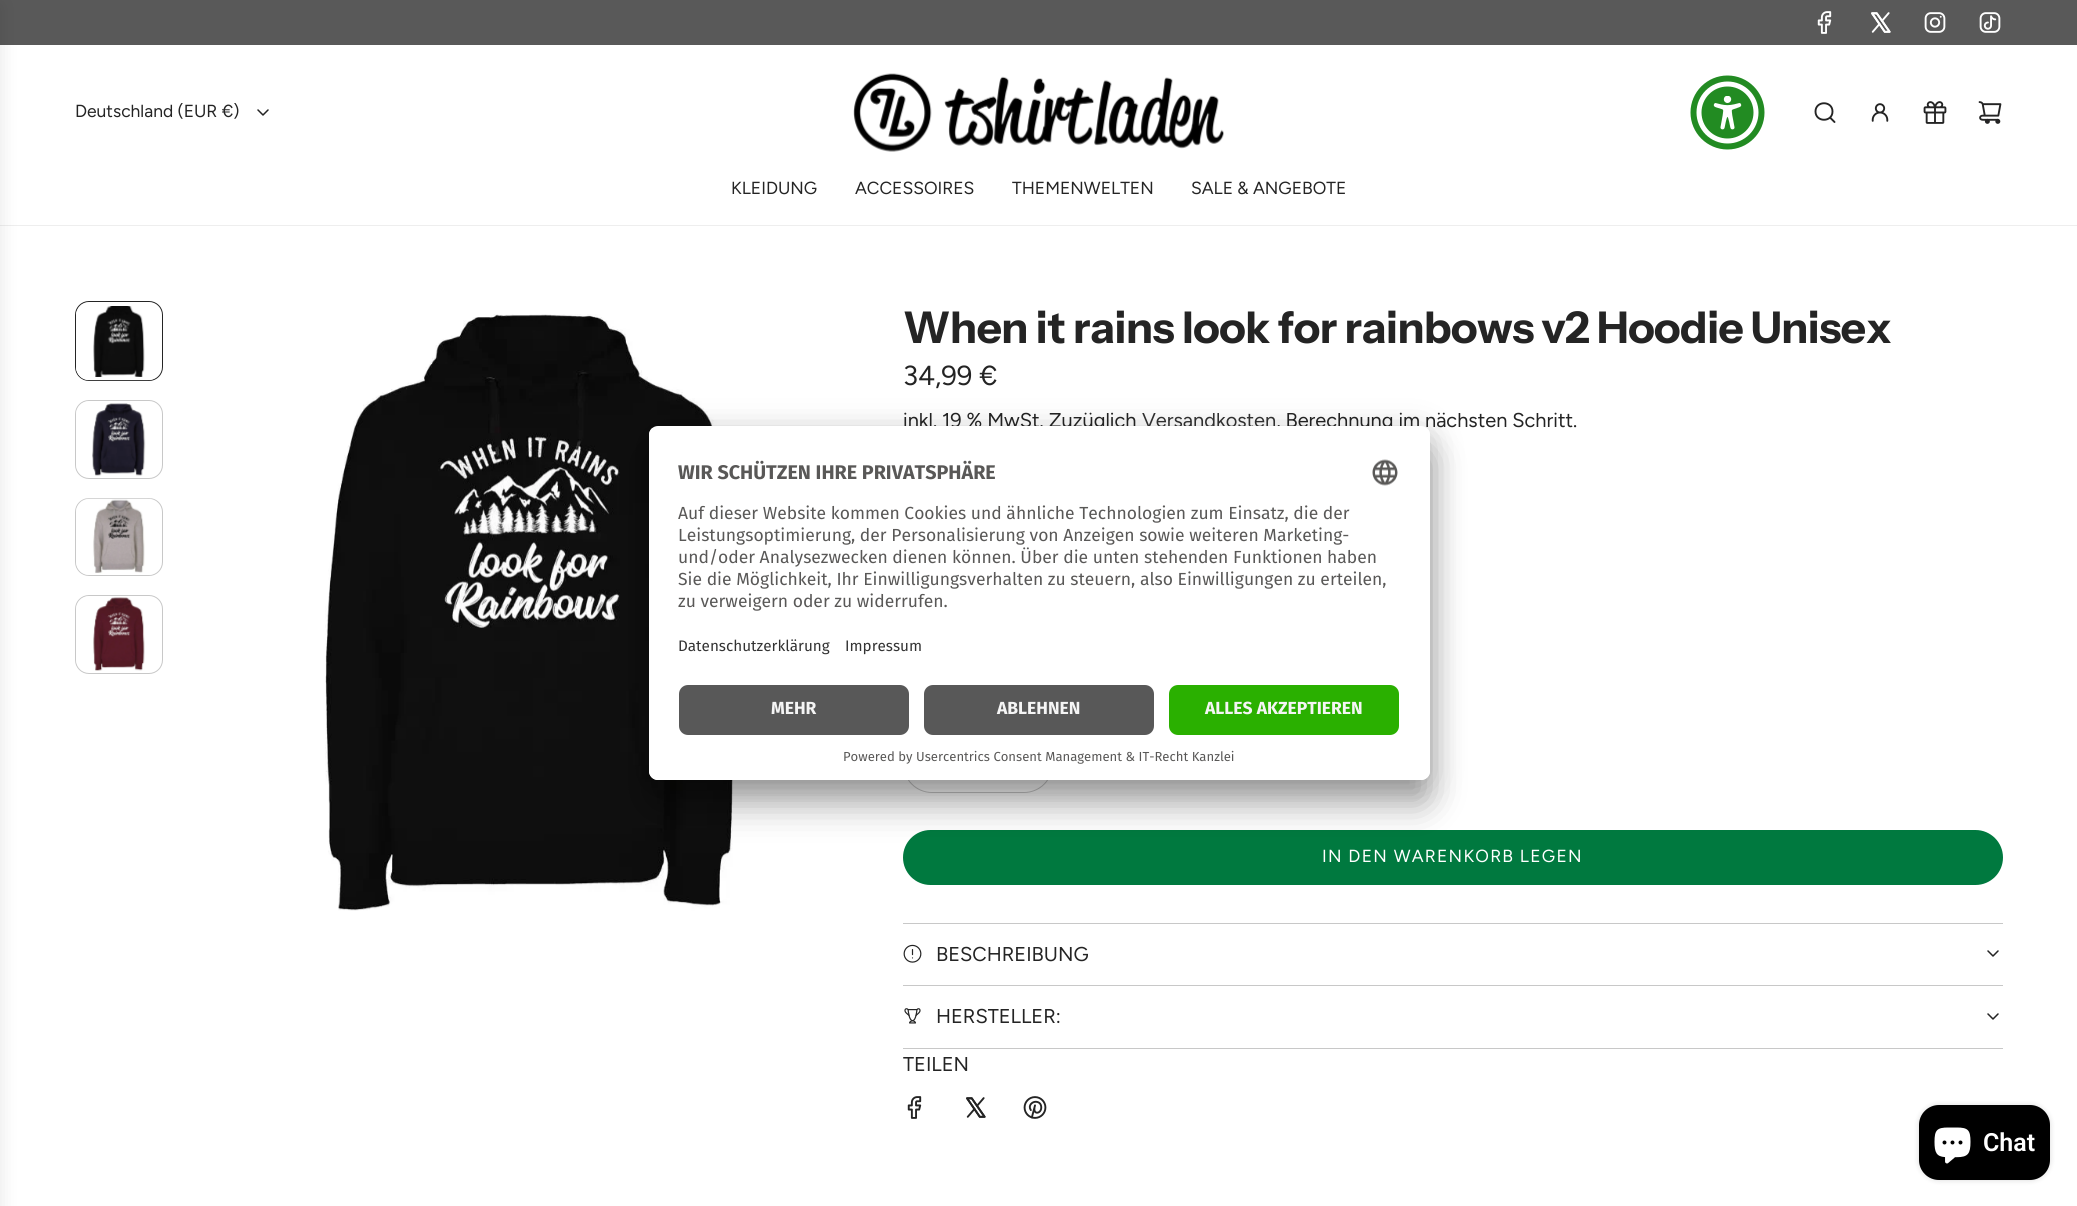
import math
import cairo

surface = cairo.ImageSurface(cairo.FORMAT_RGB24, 2077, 1206)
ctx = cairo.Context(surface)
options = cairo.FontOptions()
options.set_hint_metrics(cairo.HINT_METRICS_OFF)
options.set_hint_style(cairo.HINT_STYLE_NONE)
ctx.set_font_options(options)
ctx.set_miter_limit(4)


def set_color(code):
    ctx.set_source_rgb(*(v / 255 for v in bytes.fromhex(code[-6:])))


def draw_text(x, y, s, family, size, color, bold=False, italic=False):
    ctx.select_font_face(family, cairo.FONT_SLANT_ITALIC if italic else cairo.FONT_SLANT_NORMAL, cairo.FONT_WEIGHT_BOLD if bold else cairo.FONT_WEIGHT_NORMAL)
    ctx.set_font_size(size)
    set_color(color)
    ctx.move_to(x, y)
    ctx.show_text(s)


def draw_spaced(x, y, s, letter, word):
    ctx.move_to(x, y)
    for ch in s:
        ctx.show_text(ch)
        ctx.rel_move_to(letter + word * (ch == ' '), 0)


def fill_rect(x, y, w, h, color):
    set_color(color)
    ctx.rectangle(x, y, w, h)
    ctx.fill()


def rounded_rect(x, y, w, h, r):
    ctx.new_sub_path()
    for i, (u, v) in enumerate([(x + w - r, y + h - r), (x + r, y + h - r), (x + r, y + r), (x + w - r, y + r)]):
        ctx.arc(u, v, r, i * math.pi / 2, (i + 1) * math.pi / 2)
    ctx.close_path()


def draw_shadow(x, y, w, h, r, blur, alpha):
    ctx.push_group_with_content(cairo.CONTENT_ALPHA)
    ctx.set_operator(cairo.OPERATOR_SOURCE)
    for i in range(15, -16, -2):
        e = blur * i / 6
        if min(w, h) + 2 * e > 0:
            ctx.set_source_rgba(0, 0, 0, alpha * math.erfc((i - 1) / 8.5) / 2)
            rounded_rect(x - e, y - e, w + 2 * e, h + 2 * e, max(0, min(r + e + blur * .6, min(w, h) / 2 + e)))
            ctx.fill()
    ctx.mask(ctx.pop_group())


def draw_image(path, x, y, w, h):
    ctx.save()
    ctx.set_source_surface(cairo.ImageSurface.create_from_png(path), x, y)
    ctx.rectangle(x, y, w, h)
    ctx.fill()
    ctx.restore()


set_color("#ffffff")
ctx.paint()
set_color("#228b22")
ctx.arc(1727.5, 112.5, 37, 0, 2 * math.pi)
ctx.fill()
set_color("#ffffff")
ctx.arc(1727.5, 112.5, 31, 0, 2 * math.pi)
ctx.fill()
set_color("#228b22")
ctx.arc(1727.5, 112.5, 26, 0, 2 * math.pi)
ctx.fill()
draw_image("assets/img1.png", 1713, 96, 29, 34)
fill_rect(0, 0, 2077, 45, "#595959")
draw_image("assets/img2.png", 1817, 11, 15, 23)
draw_image("assets/img3.png", 1871, 12, 20, 21)
draw_image("assets/img4.png", 1924, 12, 22, 21)
draw_image("assets/img5.png", 1979, 12, 22, 21)
fill_rect(0, 225, 2077, 1, "#eeeeee")
set_color("#000000")
draw_shadow(-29, 6, 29, 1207, 0, 9.5, 0.1)
draw_text(75, 117, "Deutschland (EUR €)", "Figtree", 17.5, "#242424")
ctx.new_path()
ctx.move_to(258, 110)
ctx.line_to(263, 115)
ctx.line_to(268, 110)
ctx.set_line_width(1.5)
ctx.set_line_cap(cairo.LINE_CAP_ROUND)
ctx.set_line_join(cairo.LINE_JOIN_ROUND)
ctx.stroke()
draw_image("assets/img6.png", 853, 73, 371, 79)
ctx.new_path()
ctx.move_to(1830, 117.5)
ctx.line_to(1834.5, 122)
ctx.move_to(1815.5, 111.5)
ctx.curve_to(1815.5, 122.5, 1832.5, 122.5, 1832.5, 111.5)
ctx.curve_to(1832.5, 100.5, 1815.5, 100.5, 1815.5, 111.5)
ctx.close_path()
ctx.set_line_width(1.9)
ctx.stroke()
draw_image("assets/img7.png", 1871, 103, 18, 19)
draw_image("assets/img8.png", 1923, 101, 24, 23)
draw_image("assets/img9.png", 1978, 101, 24, 23)
draw_text(731, 194, "KLEIDUNG", "Figtree", 17.5, "#242424")
draw_text(855, 194, "ACCESSOIRES", "Figtree", 17.5, "#242424")
draw_text(1012, 194, "THEMENWELTEN", "Figtree", 17.5, "#242424")
draw_text(1191, 194, "SALE & ANGEBOTE", "Figtree", 17.5, "#242424")
rounded_rect(75.5, 301.5, 87, 79, 13.5)
ctx.set_line_width(1)
ctx.set_line_cap(cairo.LINE_CAP_BUTT)
ctx.set_line_join(cairo.LINE_JOIN_MITER)
ctx.stroke()
draw_image("assets/img10.png", 76, 302, 86, 79)
rounded_rect(77.5, 304.5, 82, 74, 11.5)
set_color("#ffffff")
ctx.set_line_width(3)
ctx.stroke()
rounded_rect(75.5, 400.5, 87, 78, 13.5)
set_color("#c8c8c8")
ctx.set_line_width(1)
ctx.stroke()
draw_image("assets/img11.png", 76, 401, 70, 75)
rounded_rect(75.5, 498.5, 87, 77, 13.5)
ctx.stroke()
draw_image("assets/img12.png", 76, 498, 81, 77)
rounded_rect(75.5, 595.5, 87, 78, 13.5)
ctx.stroke()
draw_image("assets/img13.png", 76, 596, 69, 75)
draw_image("assets/img14.png", 325, 314, 410, 597)
ctx.select_font_face("Instrument Sans", cairo.FONT_SLANT_NORMAL, cairo.FONT_WEIGHT_BOLD)
ctx.set_font_size(43.75)
set_color("#242424")
draw_spaced(903, 343, "When it rains look for rainbows v2 Hoodie Unisex", -0.45, 0)
draw_text(903, 385, "34,99 €", "Figtree", 27.5, "#242424")
draw_text(903, 427, "inkl. 19 % MwSt. Zuzüglich", "Figtree", 20, "#242424")
draw_text(1142, 427, "Versandkosten", "Figtree", 20, "#333333")
draw_text(1276, 427, ", Berechnung im nächsten Schritt.", "Figtree", 20, "#242424")
rounded_rect(903.5, 735.5, 149, 57, 28.5)
set_color("#c8c8c8")
ctx.stroke()
set_color("#00793f")
rounded_rect(903, 830, 1100, 55, 27.5)
ctx.fill()
ctx.set_font_size(17.5)
set_color("#ffffff")
draw_spaced(1322, 862, "IN DEN WARENKORB LEGEN", 1.25, 0)
fill_rect(903, 923, 1100, 1, "#c8c8c8")
fill_rect(903, 985, 1100, 1, "#c8c8c8")
draw_image("assets/img15.png", 903, 944, 19, 19)
draw_text(936, 961, "BESCHREIBUNG", "Figtree", 20, "#242424")
ctx.new_path()
ctx.move_to(1988, 951)
ctx.line_to(1993, 956)
ctx.line_to(1998, 951)
ctx.set_line_width(1.5)
ctx.set_line_cap(cairo.LINE_CAP_ROUND)
ctx.set_line_join(cairo.LINE_JOIN_ROUND)
ctx.stroke()
fill_rect(903, 1048, 1100, 1, "#c8c8c8")
draw_image("assets/img16.png", 904, 1008, 17, 16)
draw_text(936, 1023, "HERSTELLER:", "Figtree", 20, "#242424")
ctx.new_path()
ctx.move_to(1988, 1014)
ctx.line_to(1993, 1019)
ctx.line_to(1998, 1014)
ctx.stroke()
draw_text(903, 1071, "TEILEN", "Figtree", 20, "#242424")
draw_image("assets/img17.png", 907, 1096, 15, 23)
draw_image("assets/img18.png", 966, 1097, 20, 21)
draw_image("assets/img19.png", 1023, 1096, 24, 23)
set_color("#000000")
draw_shadow(649, 451, 781, 354, 9, 17.5, 0.3)
draw_shadow(649, 433, 781, 353, 9, 16, 0.22)
set_color("#ffffff")
rounded_rect(649, 426, 781, 354, 9)
ctx.fill()
ctx.save()
rounded_rect(649, 426, 781, 354, 9)
ctx.clip()
ctx.new_path()
ctx.move_to(658, 426)
ctx.line_to(1421, 426)
ctx.curve_to(1426, 426, 1430, 430, 1430, 435)
ctx.line_to(1430, 675)
ctx.line_to(649, 675)
ctx.line_to(649, 435)
ctx.curve_to(649, 430, 653, 426, 658, 426)
ctx.close_path()
ctx.clip()
fill_rect(649, 428, 781, 247, "#ffffff")
ctx.restore()
draw_text(678, 479, "WIR SCHÜTZEN IHRE PRIVATSPHÄRE", "Fira Sans", 19.75, "#595857", bold=True)
draw_image("assets/img20.png", 1372, 459, 26, 27)
draw_text(678, 519, "Auf dieser Website kommen Cookies und ähnliche Technologien zum Einsatz, die der", "Fira Sans", 17.5, "#595857")
draw_text(678, 541, "Leistungsoptimierung, der Personalisierung von Anzeigen sowie weiteren Marketing-", "Fira Sans", 17.5, "#595857")
draw_text(678, 563, "und/oder Analysezwecken dienen können. Über die unten stehenden Funktionen haben", "Fira Sans", 17.5, "#595857")
draw_text(678, 585, "Sie die Möglichkeit, Ihr Einwilligungsverhalten zu steuern, also Einwilligungen zu erteilen,", "Fira Sans", 17.5, "#595857")
draw_text(678, 607, "zu verweigern oder zu widerrufen.", "Fira Sans", 17.5, "#595857")
draw_text(678, 651, "Datenschutzerklärung", "Fira Sans", 15.25, "#333333")
draw_text(845, 651, "Impressum", "Fira Sans", 15.25, "#333333")
set_color("#ffffff")
ctx.new_path()
ctx.move_to(649, 675)
ctx.line_to(1430, 675)
ctx.line_to(1430, 771)
ctx.curve_to(1430, 776, 1426, 780, 1421, 780)
ctx.line_to(658, 780)
ctx.curve_to(653, 780, 649, 776, 649, 771)
ctx.close_path()
ctx.fill()
set_color("#585858")
rounded_rect(679, 685, 230, 50, 9)
ctx.fill()
draw_text(771, 714, "MEHR", "Fira Sans", 17.5, "#f5f5f5", bold=True)
set_color("#585858")
rounded_rect(924, 685, 230, 50, 9)
ctx.fill()
draw_text(997, 714, "ABLEHNEN", "Fira Sans", 17.5, "#f5f5f5", bold=True)
set_color("#2ab000")
rounded_rect(1169, 685, 230, 50, 9)
ctx.fill()
draw_text(1205, 714, "ALLES AKZEPTIEREN", "Fira Sans", 17.5, "#f5f5f5", bold=True)
draw_text(843, 761, "Powered by Usercentrics Consent Management & IT-Recht Kanzlei", "Fira Sans", 13.1, "#595857")
set_color("#000000")
draw_shadow(1919, 1105, 131, 75, 20, 3, 0.15)
set_color("#000000")
rounded_rect(1919, 1105, 131, 75, 20)
ctx.fill()
draw_image("assets/img21.png", 1934, 1127, 37, 37)
draw_text(1983, 1151, "Chat", "Roboto SemiBold", 25, "#ffffff")
surface.write_to_png("output.png")
